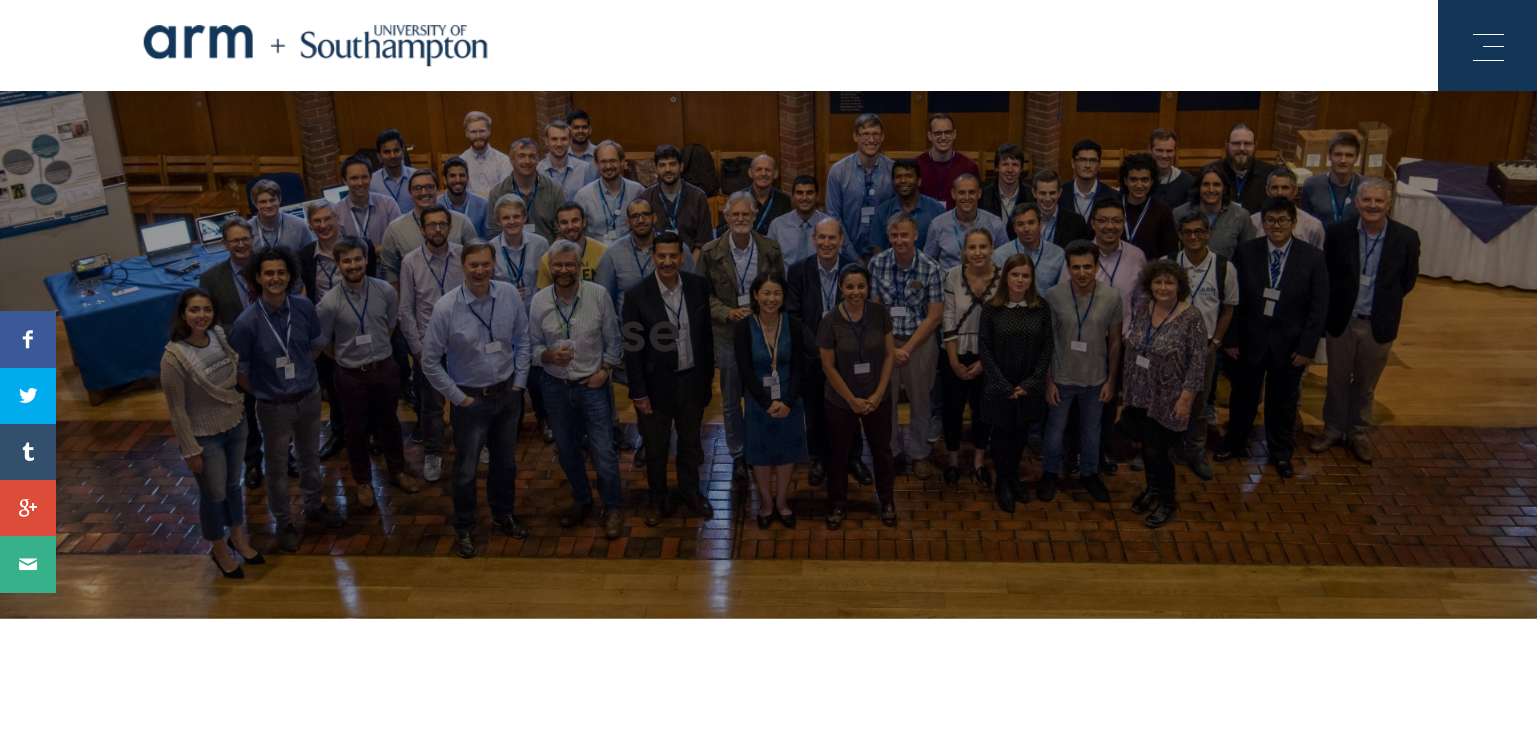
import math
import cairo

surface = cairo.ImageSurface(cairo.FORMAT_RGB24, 1537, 733)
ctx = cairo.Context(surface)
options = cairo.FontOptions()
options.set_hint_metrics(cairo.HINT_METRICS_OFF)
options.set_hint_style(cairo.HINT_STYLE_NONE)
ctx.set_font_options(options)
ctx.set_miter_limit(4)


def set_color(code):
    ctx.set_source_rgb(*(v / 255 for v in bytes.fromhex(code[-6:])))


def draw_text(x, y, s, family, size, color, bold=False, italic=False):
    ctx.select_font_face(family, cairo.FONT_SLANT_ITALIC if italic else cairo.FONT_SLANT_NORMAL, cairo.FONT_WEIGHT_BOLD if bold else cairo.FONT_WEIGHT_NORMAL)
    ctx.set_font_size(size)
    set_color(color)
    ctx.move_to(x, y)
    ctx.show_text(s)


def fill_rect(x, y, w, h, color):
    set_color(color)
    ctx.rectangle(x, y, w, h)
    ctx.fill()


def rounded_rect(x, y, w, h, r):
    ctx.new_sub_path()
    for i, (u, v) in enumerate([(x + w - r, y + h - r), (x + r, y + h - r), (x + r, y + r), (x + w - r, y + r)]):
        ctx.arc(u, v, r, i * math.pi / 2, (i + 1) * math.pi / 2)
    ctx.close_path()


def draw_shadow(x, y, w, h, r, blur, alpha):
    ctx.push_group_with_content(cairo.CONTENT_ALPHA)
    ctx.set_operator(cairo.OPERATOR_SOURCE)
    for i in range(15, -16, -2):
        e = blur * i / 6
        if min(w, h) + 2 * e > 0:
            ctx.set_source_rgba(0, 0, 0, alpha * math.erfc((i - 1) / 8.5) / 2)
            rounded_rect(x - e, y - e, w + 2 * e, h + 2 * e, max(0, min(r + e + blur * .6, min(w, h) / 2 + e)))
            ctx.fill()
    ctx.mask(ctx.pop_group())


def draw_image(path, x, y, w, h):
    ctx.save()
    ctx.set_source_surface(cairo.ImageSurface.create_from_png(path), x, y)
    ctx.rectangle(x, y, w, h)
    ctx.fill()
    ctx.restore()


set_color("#ffffff")
ctx.paint()
draw_image("assets/img7.png", 0, 91, 1537, 528)
set_color("#000000")
draw_shadow(0, 6, 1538, 92, 0, 15.5, 0.15)
fill_rect(0, 0, 1438, 91, "#ffffff")
draw_image("assets/img1.png", 143, 25, 345, 42)
fill_rect(1438, 0, 99, 91, "#133558")
fill_rect(1473, 34, 31, 1, "#ffffff")
fill_rect(1483, 46, 21, 1, "#ffffff")
fill_rect(1473, 60, 31, 1, "#ffffff")
fill_rect(0, 311, 56, 57, "#3b5998")
draw_image("assets/img2.png", 22, 330, 11, 19)
fill_rect(0, 368, 56, 56, "#00aced")
draw_image("assets/img3.png", 19, 388, 19, 15)
fill_rect(0, 424, 56, 56, "#32506d")
draw_image("assets/img4.png", 22, 442, 12, 19)
fill_rect(0, 480, 56, 56, "#dd4b39")
draw_image("assets/img5.png", 19, 499, 18, 18)
fill_rect(0, 536, 56, 57, "#37b18a")
draw_image("assets/img6.png", 19, 558, 19, 13)
draw_text(619, 351, "se", "Sofia SemiBold", 62, "#292527")
surface.write_to_png("output.png")
